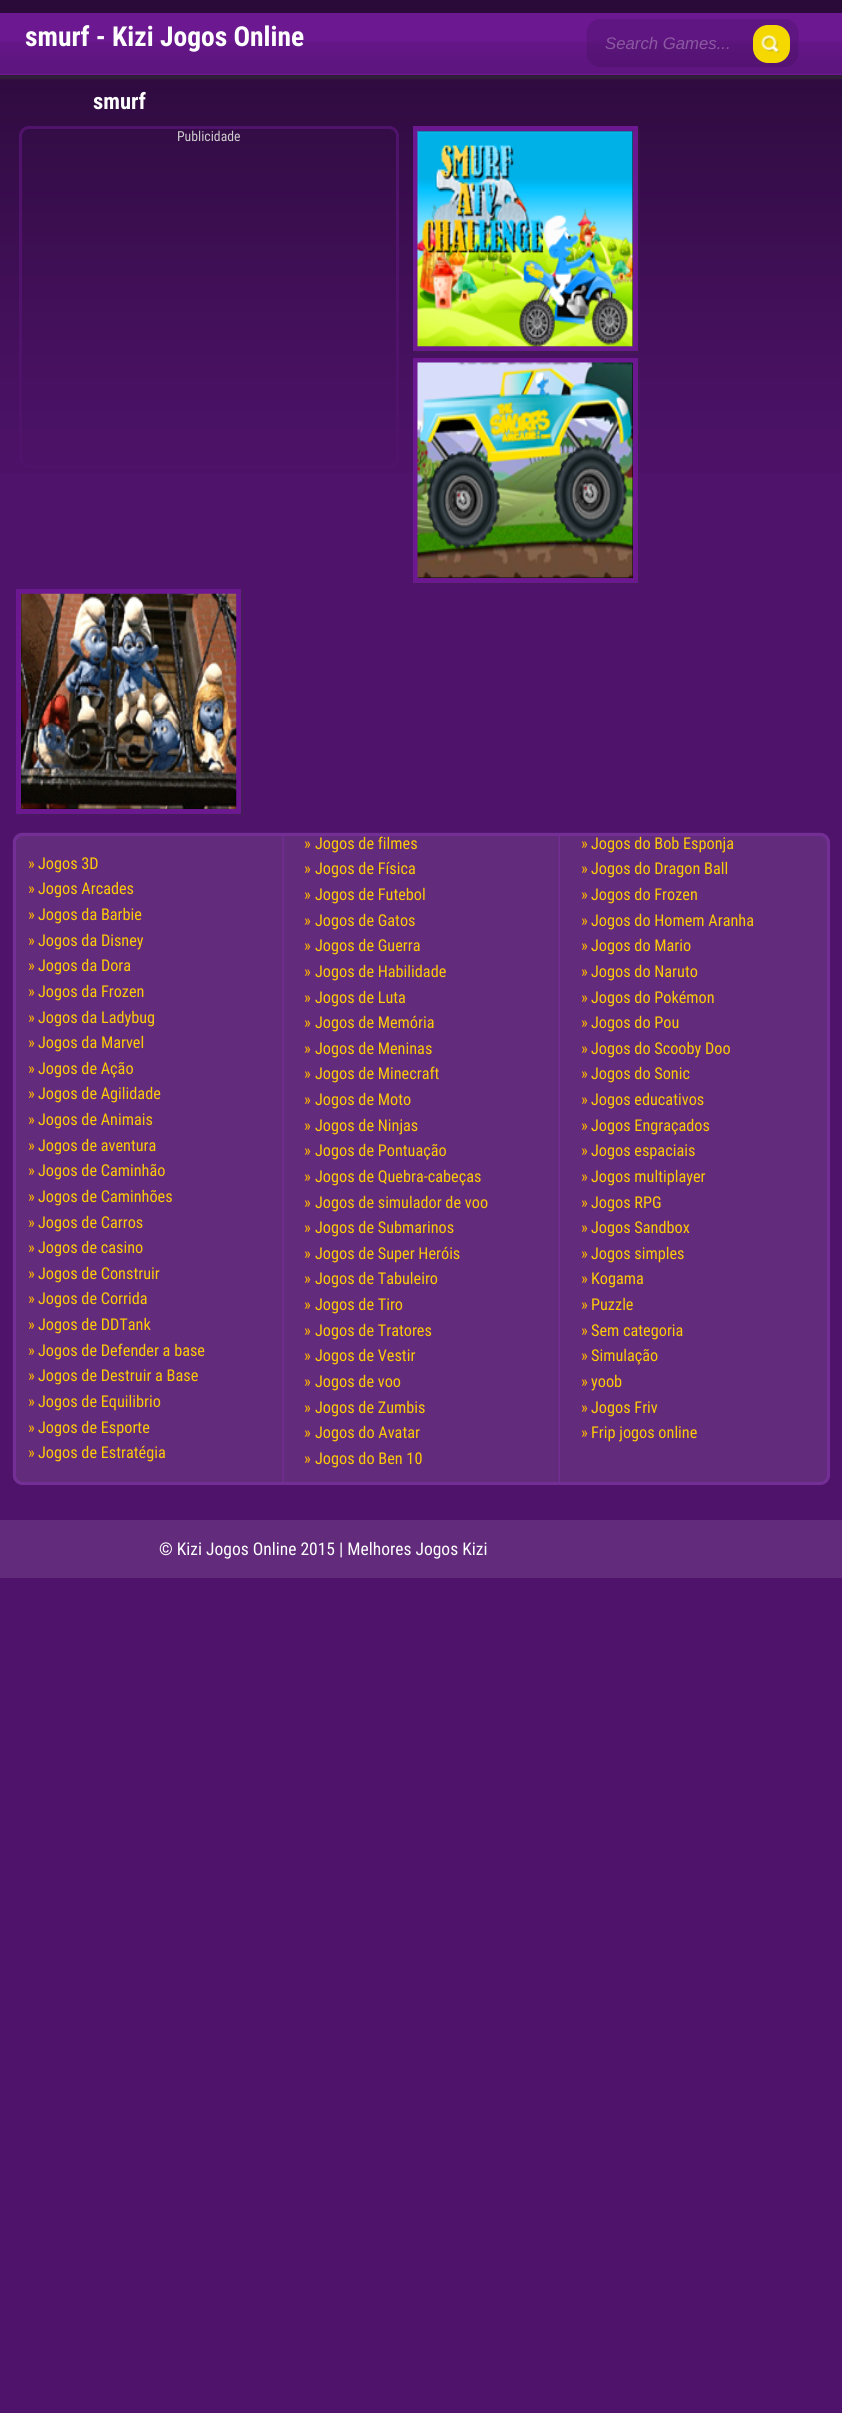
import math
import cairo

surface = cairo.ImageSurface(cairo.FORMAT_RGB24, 842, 2413)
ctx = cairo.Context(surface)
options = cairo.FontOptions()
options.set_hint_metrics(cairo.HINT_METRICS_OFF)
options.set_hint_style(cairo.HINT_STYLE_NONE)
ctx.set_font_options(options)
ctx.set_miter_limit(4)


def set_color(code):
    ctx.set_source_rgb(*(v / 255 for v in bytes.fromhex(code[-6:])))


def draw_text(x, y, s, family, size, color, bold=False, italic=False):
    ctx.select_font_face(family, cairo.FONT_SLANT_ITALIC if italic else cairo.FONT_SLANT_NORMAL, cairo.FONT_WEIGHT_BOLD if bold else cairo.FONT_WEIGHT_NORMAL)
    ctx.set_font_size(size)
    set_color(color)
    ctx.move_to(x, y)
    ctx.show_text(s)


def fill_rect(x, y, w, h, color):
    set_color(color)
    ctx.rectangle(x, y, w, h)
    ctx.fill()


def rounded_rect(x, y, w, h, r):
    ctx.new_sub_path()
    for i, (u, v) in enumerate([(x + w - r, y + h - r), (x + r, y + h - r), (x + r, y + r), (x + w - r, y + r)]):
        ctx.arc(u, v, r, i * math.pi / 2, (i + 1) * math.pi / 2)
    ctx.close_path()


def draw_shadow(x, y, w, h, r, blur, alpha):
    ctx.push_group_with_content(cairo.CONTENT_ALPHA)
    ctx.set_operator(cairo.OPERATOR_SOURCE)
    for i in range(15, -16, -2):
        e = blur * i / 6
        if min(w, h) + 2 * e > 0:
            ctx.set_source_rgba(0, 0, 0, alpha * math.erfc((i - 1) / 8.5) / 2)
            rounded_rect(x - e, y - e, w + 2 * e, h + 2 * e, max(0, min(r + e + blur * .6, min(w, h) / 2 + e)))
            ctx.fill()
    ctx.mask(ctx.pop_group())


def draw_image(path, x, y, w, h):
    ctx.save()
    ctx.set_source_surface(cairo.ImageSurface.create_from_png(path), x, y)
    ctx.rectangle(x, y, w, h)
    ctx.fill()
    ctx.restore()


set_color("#50136c")
ctx.paint()
draw_image("assets/img1.png", 0, 0, 842, 473)
set_color("#323232")
draw_shadow(0, 16, 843, 63, 0, 0.5, 0.5)
fill_rect(0, 13, 842, 62, "#6b1891")
draw_image("assets/img2.png", 0, 41, 842, 33)
draw_text(25, 46, "smurf - Kizi Jogos Online", "Roboto Condensed", 27.5, "#ffffff", bold=True)
draw_image("assets/img3.png", 586, 19, 213, 48)
draw_text(605, 49, "Search Games...", "Liberation Sans", 16.75, "#8b59a1", italic=True)
set_color("#f4d800")
rounded_rect(753, 25, 37, 38, 15)
ctx.fill()
draw_image("assets/img4.png", 760, 35, 20, 18)
draw_text(93, 109, "smurf", "Roboto Condensed", 22.5, "#ffffff", bold=True)
rounded_rect(20.5, 127.5, 377, 339, 8.5)
set_color("#50136c")
ctx.set_line_width(3)
ctx.stroke()
draw_text(177, 141, "Publicidade", "Roboto Condensed", 13.75, "#cccccc")
set_color("#323232")
draw_shadow(414, 128, 225, 225, 0, 0.5, 0.3)
ctx.rectangle(415.5, 128.5, 220, 220)
set_color("#6b1891")
ctx.set_line_width(5)
ctx.stroke()
fill_rect(418, 131, 215, 215, "#000000")
draw_image("assets/img5.png", 417, 131, 216, 216)
set_color("#323232")
draw_shadow(414, 359, 225, 225, 0, 0.5, 0.3)
ctx.rectangle(415.5, 360.5, 220, 220)
set_color("#6b1891")
ctx.stroke()
fill_rect(418, 363, 215, 215, "#000000")
draw_image("assets/img6.png", 417, 362, 216, 216)
set_color("#323232")
draw_shadow(18, 590, 225, 225, 0, 0.5, 0.3)
ctx.rectangle(18.5, 591.5, 220, 220)
set_color("#6b1891")
ctx.stroke()
fill_rect(21, 594, 215, 215, "#000000")
draw_image("assets/img7.png", 21, 593, 216, 216)
draw_image("assets/img8.png", 12, 832, 818, 653)
rounded_rect(14.5, 834.5, 814, 649, 8.5)
set_color("#742f96")
ctx.set_line_width(3)
ctx.stroke()
draw_text(304, 849, "»", "Roboto Condensed", 16.25, "#ffb400")
draw_text(315, 849, "Jogos de filmes", "Roboto Condensed", 16.25, "#ffc809")
draw_text(581, 849, "»", "Roboto Condensed", 16.25, "#ffb400")
draw_text(591, 849, "Jogos do Bob Esponja", "Roboto Condensed", 16.25, "#ffc809")
draw_text(28, 869, "»", "Roboto Condensed", 16.25, "#ffb400")
draw_text(38, 869, "Jogos 3D", "Roboto Condensed", 16.25, "#ffc809")
draw_text(304, 874, "»", "Roboto Condensed", 16.25, "#ffb400")
draw_text(315, 874, "Jogos de Física", "Roboto Condensed", 16.25, "#ffc809")
draw_text(581, 874, "»", "Roboto Condensed", 16.25, "#ffb400")
draw_text(591, 874, "Jogos do Dragon Ball", "Roboto Condensed", 16.25, "#ffc809")
draw_text(28, 894, "»", "Roboto Condensed", 16.25, "#ffb400")
draw_text(38, 894, "Jogos Arcades", "Roboto Condensed", 16.25, "#ffc809")
draw_text(304, 900, "»", "Roboto Condensed", 16.25, "#ffb400")
draw_text(315, 900, "Jogos de Futebol", "Roboto Condensed", 16.25, "#ffc809")
draw_text(581, 900, "»", "Roboto Condensed", 16.25, "#ffb400")
draw_text(591, 900, "Jogos do Frozen", "Roboto Condensed", 16.25, "#ffc809")
draw_text(28, 920, "»", "Roboto Condensed", 16.25, "#ffb400")
draw_text(38, 920, "Jogos da Barbie", "Roboto Condensed", 16.25, "#ffc809")
draw_text(304, 926, "»", "Roboto Condensed", 16.25, "#ffb400")
draw_text(315, 926, "Jogos de Gatos", "Roboto Condensed", 16.25, "#ffc809")
draw_text(581, 926, "»", "Roboto Condensed", 16.25, "#ffb400")
draw_text(591, 926, "Jogos do Homem Aranha", "Roboto Condensed", 16.25, "#ffc809")
draw_text(28, 946, "»", "Roboto Condensed", 16.25, "#ffb400")
draw_text(38, 946, "Jogos da Disney", "Roboto Condensed", 16.25, "#ffc809")
draw_text(304, 951, "»", "Roboto Condensed", 16.25, "#ffb400")
draw_text(315, 951, "Jogos de Guerra", "Roboto Condensed", 16.25, "#ffc809")
draw_text(581, 951, "»", "Roboto Condensed", 16.25, "#ffb400")
draw_text(591, 951, "Jogos do Mario", "Roboto Condensed", 16.25, "#ffc809")
draw_text(28, 971, "»", "Roboto Condensed", 16.25, "#ffb400")
draw_text(38, 971, "Jogos da Dora", "Roboto Condensed", 16.25, "#ffc809")
draw_text(304, 977, "»", "Roboto Condensed", 16.25, "#ffb400")
draw_text(315, 977, "Jogos de Habilidade", "Roboto Condensed", 16.25, "#ffc809")
draw_text(581, 977, "»", "Roboto Condensed", 16.25, "#ffb400")
draw_text(591, 977, "Jogos do Naruto", "Roboto Condensed", 16.25, "#ffc809")
draw_text(28, 997, "»", "Roboto Condensed", 16.25, "#ffb400")
draw_text(38, 997, "Jogos da Frozen", "Roboto Condensed", 16.25, "#ffc809")
draw_text(304, 1003, "»", "Roboto Condensed", 16.25, "#ffb400")
draw_text(315, 1003, "Jogos de Luta", "Roboto Condensed", 16.25, "#ffc809")
draw_text(581, 1003, "»", "Roboto Condensed", 16.25, "#ffb400")
draw_text(591, 1003, "Jogos do Pokémon", "Roboto Condensed", 16.25, "#ffc809")
draw_text(28, 1023, "»", "Roboto Condensed", 16.25, "#ffb400")
draw_text(38, 1023, "Jogos da Ladybug", "Roboto Condensed", 16.25, "#ffc809")
draw_text(304, 1028, "»", "Roboto Condensed", 16.25, "#ffb400")
draw_text(315, 1028, "Jogos de Memória", "Roboto Condensed", 16.25, "#ffc809")
draw_text(581, 1028, "»", "Roboto Condensed", 16.25, "#ffb400")
draw_text(591, 1028, "Jogos do Pou", "Roboto Condensed", 16.25, "#ffc809")
draw_text(28, 1048, "»", "Roboto Condensed", 16.25, "#ffb400")
draw_text(38, 1048, "Jogos da Marvel", "Roboto Condensed", 16.25, "#ffc809")
draw_text(304, 1054, "»", "Roboto Condensed", 16.25, "#ffb400")
draw_text(315, 1054, "Jogos de Meninas", "Roboto Condensed", 16.25, "#ffc809")
draw_text(581, 1054, "»", "Roboto Condensed", 16.25, "#ffb400")
draw_text(591, 1054, "Jogos do Scooby Doo", "Roboto Condensed", 16.25, "#ffc809")
draw_text(28, 1074, "»", "Roboto Condensed", 16.25, "#ffb400")
draw_text(38, 1074, "Jogos de Ação", "Roboto Condensed", 16.25, "#ffc809")
draw_text(304, 1079, "»", "Roboto Condensed", 16.25, "#ffb400")
draw_text(315, 1079, "Jogos de Minecraft", "Roboto Condensed", 16.25, "#ffc809")
draw_text(581, 1079, "»", "Roboto Condensed", 16.25, "#ffb400")
draw_text(591, 1079, "Jogos do Sonic", "Roboto Condensed", 16.25, "#ffc809")
draw_text(28, 1099, "»", "Roboto Condensed", 16.25, "#ffb400")
draw_text(38, 1099, "Jogos de Agilidade", "Roboto Condensed", 16.25, "#ffc809")
draw_text(304, 1105, "»", "Roboto Condensed", 16.25, "#ffb400")
draw_text(315, 1105, "Jogos de Moto", "Roboto Condensed", 16.25, "#ffc809")
draw_text(581, 1105, "»", "Roboto Condensed", 16.25, "#ffb400")
draw_text(591, 1105, "Jogos educativos", "Roboto Condensed", 16.25, "#ffc809")
draw_text(28, 1125, "»", "Roboto Condensed", 16.25, "#ffb400")
draw_text(38, 1125, "Jogos de Animais", "Roboto Condensed", 16.25, "#ffc809")
draw_text(304, 1131, "»", "Roboto Condensed", 16.25, "#ffb400")
draw_text(315, 1131, "Jogos de Ninjas", "Roboto Condensed", 16.25, "#ffc809")
draw_text(581, 1131, "»", "Roboto Condensed", 16.25, "#ffb400")
draw_text(591, 1131, "Jogos Engraçados", "Roboto Condensed", 16.25, "#ffc809")
draw_text(28, 1151, "»", "Roboto Condensed", 16.25, "#ffb400")
draw_text(38, 1151, "Jogos de aventura", "Roboto Condensed", 16.25, "#ffc809")
draw_text(304, 1156, "»", "Roboto Condensed", 16.25, "#ffb400")
draw_text(315, 1156, "Jogos de Pontuação", "Roboto Condensed", 16.25, "#ffc809")
draw_text(581, 1156, "»", "Roboto Condensed", 16.25, "#ffb400")
draw_text(591, 1156, "Jogos espaciais", "Roboto Condensed", 16.25, "#ffc809")
draw_text(28, 1176, "»", "Roboto Condensed", 16.25, "#ffb400")
draw_text(38, 1176, "Jogos de Caminhão", "Roboto Condensed", 16.25, "#ffc809")
draw_text(304, 1182, "»", "Roboto Condensed", 16.25, "#ffb400")
draw_text(315, 1182, "Jogos de Quebra-cabeças", "Roboto Condensed", 16.25, "#ffc809")
draw_text(581, 1182, "»", "Roboto Condensed", 16.25, "#ffb400")
draw_text(591, 1182, "Jogos multiplayer", "Roboto Condensed", 16.25, "#ffc809")
draw_text(28, 1202, "»", "Roboto Condensed", 16.25, "#ffb400")
draw_text(38, 1202, "Jogos de Caminhões", "Roboto Condensed", 16.25, "#ffc809")
draw_text(304, 1208, "»", "Roboto Condensed", 16.25, "#ffb400")
draw_text(315, 1208, "Jogos de simulador de voo", "Roboto Condensed", 16.25, "#ffc809")
draw_text(581, 1208, "»", "Roboto Condensed", 16.25, "#ffb400")
draw_text(591, 1208, "Jogos RPG", "Roboto Condensed", 16.25, "#ffc809")
draw_text(28, 1228, "»", "Roboto Condensed", 16.25, "#ffb400")
draw_text(38, 1228, "Jogos de Carros", "Roboto Condensed", 16.25, "#ffc809")
draw_text(304, 1233, "»", "Roboto Condensed", 16.25, "#ffb400")
draw_text(315, 1233, "Jogos de Submarinos", "Roboto Condensed", 16.25, "#ffc809")
draw_text(581, 1233, "»", "Roboto Condensed", 16.25, "#ffb400")
draw_text(591, 1233, "Jogos Sandbox", "Roboto Condensed", 16.25, "#ffc809")
draw_text(28, 1253, "»", "Roboto Condensed", 16.25, "#ffb400")
draw_text(38, 1253, "Jogos de casino", "Roboto Condensed", 16.25, "#ffc809")
draw_text(304, 1259, "»", "Roboto Condensed", 16.25, "#ffb400")
draw_text(315, 1259, "Jogos de Super Heróis", "Roboto Condensed", 16.25, "#ffc809")
draw_text(581, 1259, "»", "Roboto Condensed", 16.25, "#ffb400")
draw_text(591, 1259, "Jogos simples", "Roboto Condensed", 16.25, "#ffc809")
draw_text(28, 1279, "»", "Roboto Condensed", 16.25, "#ffb400")
draw_text(38, 1279, "Jogos de Construir", "Roboto Condensed", 16.25, "#ffc809")
draw_text(304, 1284, "»", "Roboto Condensed", 16.25, "#ffb400")
draw_text(315, 1284, "Jogos de Tabuleiro", "Roboto Condensed", 16.25, "#ffc809")
draw_text(581, 1284, "»", "Roboto Condensed", 16.25, "#ffb400")
draw_text(591, 1284, "Kogama", "Roboto Condensed", 16.25, "#ffc809")
draw_text(28, 1304, "»", "Roboto Condensed", 16.25, "#ffb400")
draw_text(38, 1304, "Jogos de Corrida", "Roboto Condensed", 16.25, "#ffc809")
draw_text(304, 1310, "»", "Roboto Condensed", 16.25, "#ffb400")
draw_text(315, 1310, "Jogos de Tiro", "Roboto Condensed", 16.25, "#ffc809")
draw_text(581, 1310, "»", "Roboto Condensed", 16.25, "#ffb400")
draw_text(591, 1310, "Puzzle", "Roboto Condensed", 16.25, "#ffc809")
draw_text(28, 1330, "»", "Roboto Condensed", 16.25, "#ffb400")
draw_text(38, 1330, "Jogos de DDTank", "Roboto Condensed", 16.25, "#ffc809")
draw_text(304, 1336, "»", "Roboto Condensed", 16.25, "#ffb400")
draw_text(315, 1336, "Jogos de Tratores", "Roboto Condensed", 16.25, "#ffc809")
draw_text(581, 1336, "»", "Roboto Condensed", 16.25, "#ffb400")
draw_text(591, 1336, "Sem categoria", "Roboto Condensed", 16.25, "#ffc809")
draw_text(28, 1356, "»", "Roboto Condensed", 16.25, "#ffb400")
draw_text(38, 1356, "Jogos de Defender a base", "Roboto Condensed", 16.25, "#ffc809")
draw_text(304, 1361, "»", "Roboto Condensed", 16.25, "#ffb400")
draw_text(315, 1361, "Jogos de Vestir", "Roboto Condensed", 16.25, "#ffc809")
draw_text(581, 1361, "»", "Roboto Condensed", 16.25, "#ffb400")
draw_text(591, 1361, "Simulação", "Roboto Condensed", 16.25, "#ffc809")
draw_text(28, 1381, "»", "Roboto Condensed", 16.25, "#ffb400")
draw_text(38, 1381, "Jogos de Destruir a Base", "Roboto Condensed", 16.25, "#ffc809")
draw_text(304, 1387, "»", "Roboto Condensed", 16.25, "#ffb400")
draw_text(315, 1387, "Jogos de voo", "Roboto Condensed", 16.25, "#ffc809")
draw_text(581, 1387, "»", "Roboto Condensed", 16.25, "#ffb400")
draw_text(591, 1387, "yoob", "Roboto Condensed", 16.25, "#ffc809")
draw_text(28, 1407, "»", "Roboto Condensed", 16.25, "#ffb400")
draw_text(38, 1407, "Jogos de Equilibrio", "Roboto Condensed", 16.25, "#ffc809")
draw_text(304, 1413, "»", "Roboto Condensed", 16.25, "#ffb400")
draw_text(315, 1413, "Jogos de Zumbis", "Roboto Condensed", 16.25, "#ffc809")
draw_text(581, 1413, "»", "Roboto Condensed", 16.25, "#ffb400")
draw_text(591, 1413, "Jogos Friv", "Roboto Condensed", 16.25, "#ffc809")
draw_text(28, 1433, "»", "Roboto Condensed", 16.25, "#ffb400")
draw_text(38, 1433, "Jogos de Esporte", "Roboto Condensed", 16.25, "#ffc809")
draw_text(304, 1438, "»", "Roboto Condensed", 16.25, "#ffb400")
draw_text(315, 1438, "Jogos do Avatar", "Roboto Condensed", 16.25, "#ffc809")
draw_text(581, 1438, "»", "Roboto Condensed", 16.25, "#ffb400")
draw_text(591, 1438, "Frip jogos online", "Roboto Condensed", 16.25, "#ffc809")
draw_text(28, 1458, "»", "Roboto Condensed", 16.25, "#ffb400")
draw_text(38, 1458, "Jogos de Estratégia", "Roboto Condensed", 16.25, "#ffc809")
draw_text(304, 1464, "»", "Roboto Condensed", 16.25, "#ffb400")
draw_text(315, 1464, "Jogos do Ben 10", "Roboto Condensed", 16.25, "#ffc809")
fill_rect(0, 1520, 842, 58, "#622b7b")
draw_text(159, 1555, "© Kizi Jogos Online 2015 | Melhores Jogos Kizi", "Roboto Condensed", 17.5, "#ffffff")
surface.write_to_png("output.png")
